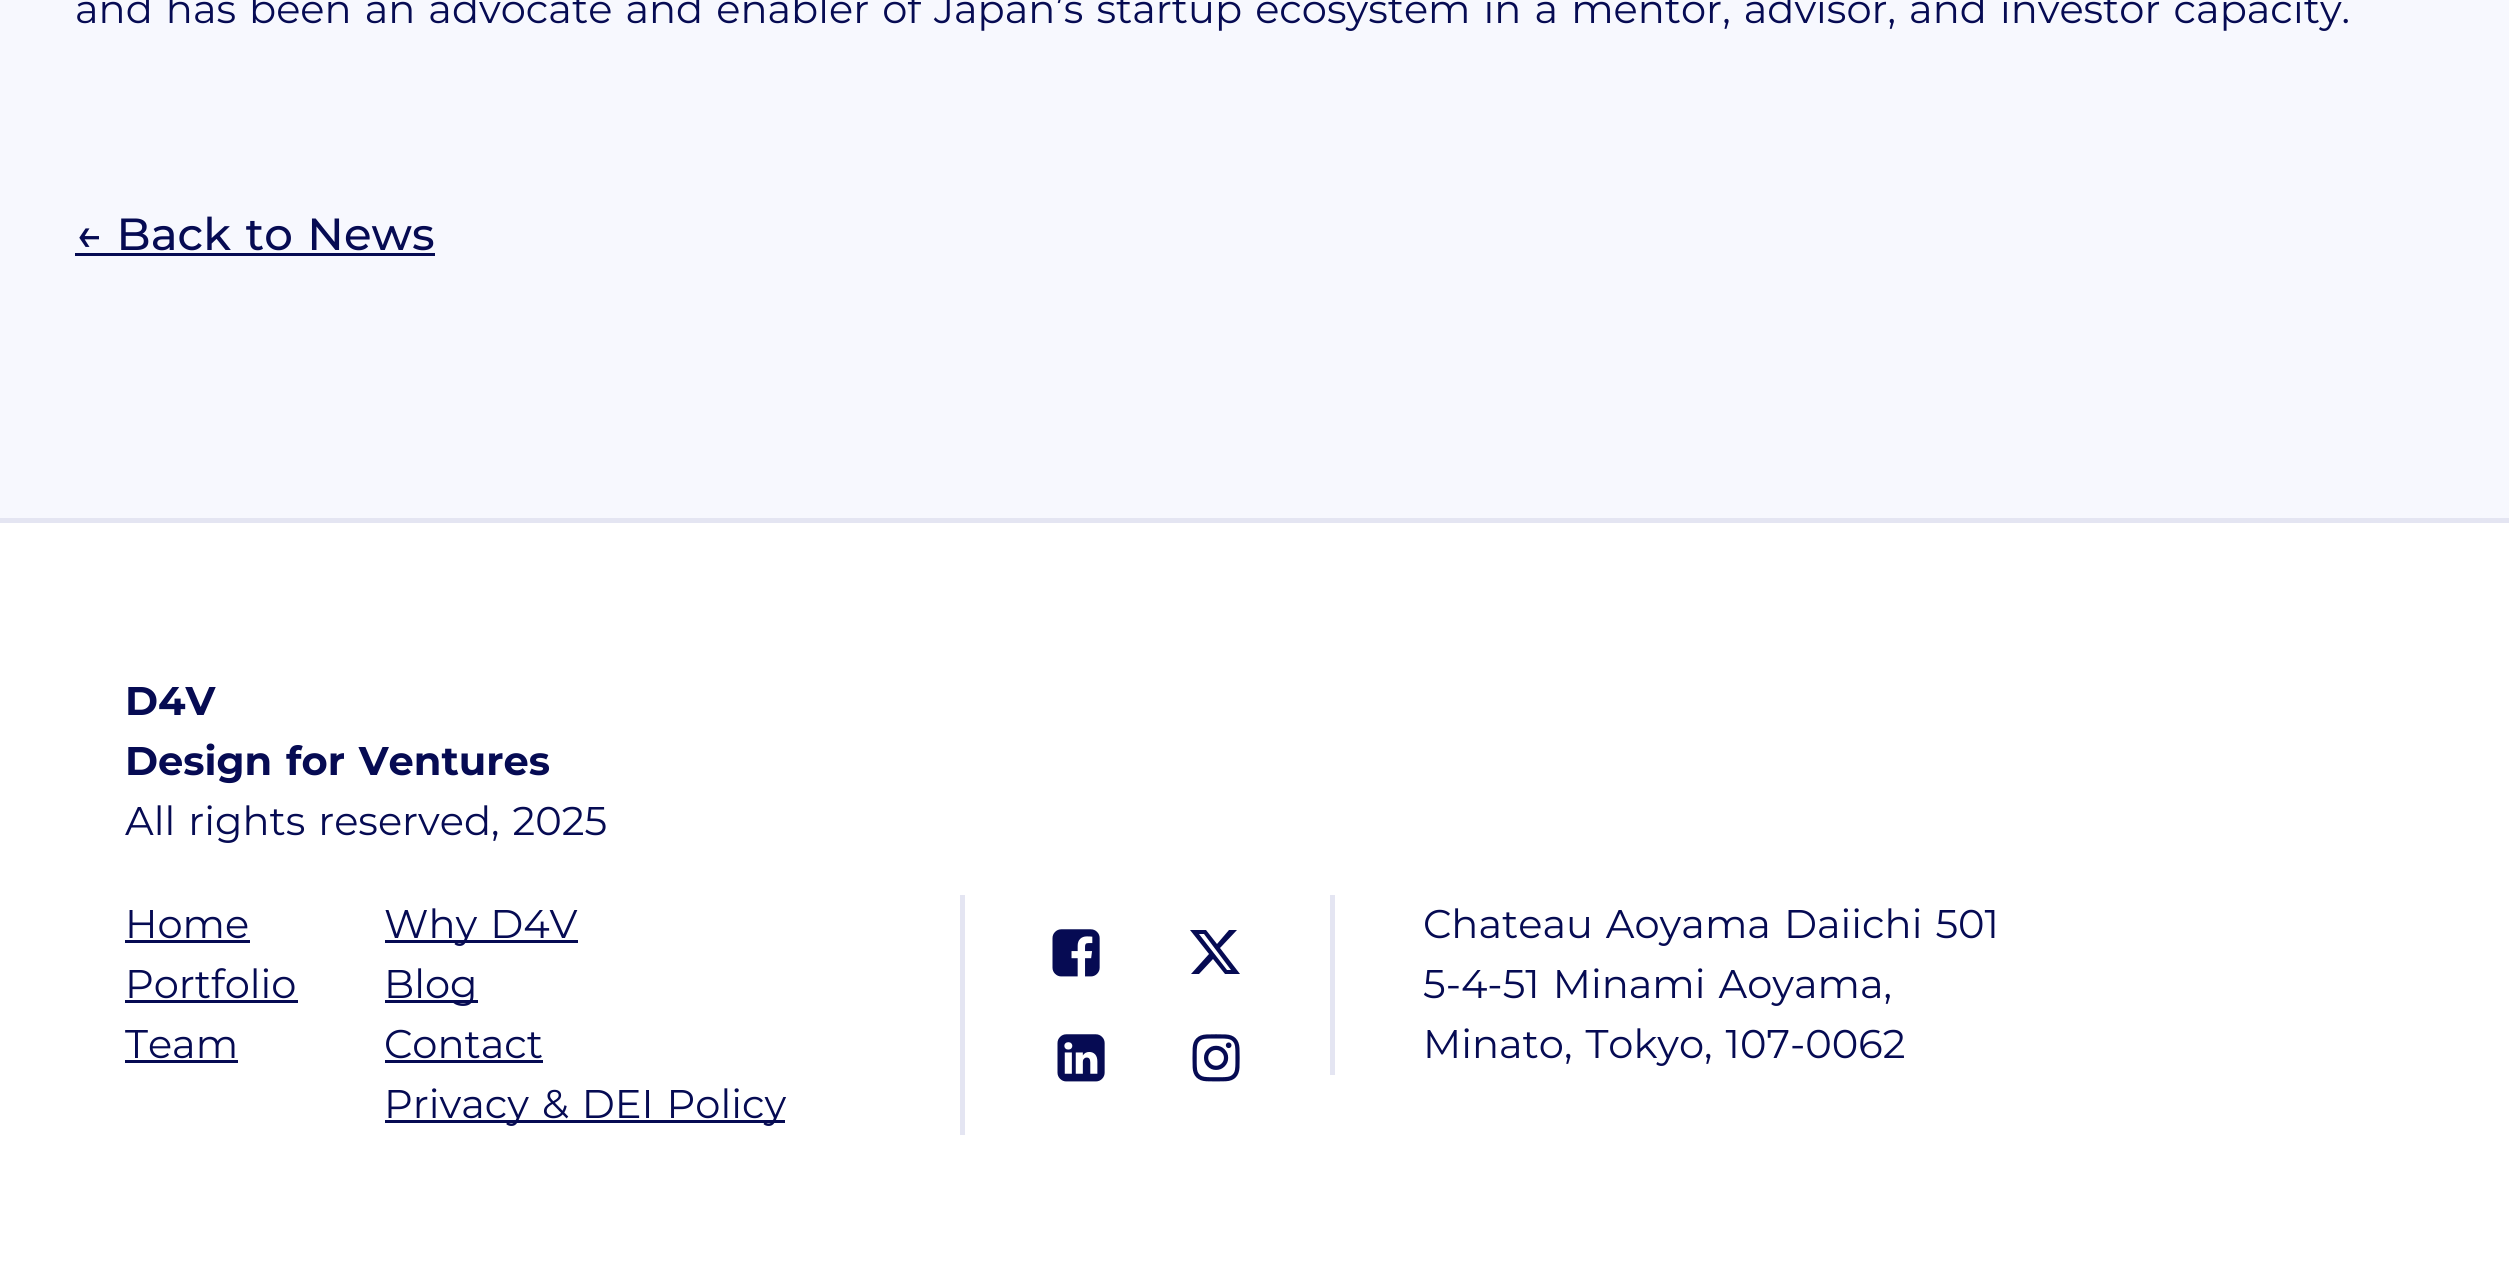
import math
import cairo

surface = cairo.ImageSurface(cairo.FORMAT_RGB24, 2509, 1284)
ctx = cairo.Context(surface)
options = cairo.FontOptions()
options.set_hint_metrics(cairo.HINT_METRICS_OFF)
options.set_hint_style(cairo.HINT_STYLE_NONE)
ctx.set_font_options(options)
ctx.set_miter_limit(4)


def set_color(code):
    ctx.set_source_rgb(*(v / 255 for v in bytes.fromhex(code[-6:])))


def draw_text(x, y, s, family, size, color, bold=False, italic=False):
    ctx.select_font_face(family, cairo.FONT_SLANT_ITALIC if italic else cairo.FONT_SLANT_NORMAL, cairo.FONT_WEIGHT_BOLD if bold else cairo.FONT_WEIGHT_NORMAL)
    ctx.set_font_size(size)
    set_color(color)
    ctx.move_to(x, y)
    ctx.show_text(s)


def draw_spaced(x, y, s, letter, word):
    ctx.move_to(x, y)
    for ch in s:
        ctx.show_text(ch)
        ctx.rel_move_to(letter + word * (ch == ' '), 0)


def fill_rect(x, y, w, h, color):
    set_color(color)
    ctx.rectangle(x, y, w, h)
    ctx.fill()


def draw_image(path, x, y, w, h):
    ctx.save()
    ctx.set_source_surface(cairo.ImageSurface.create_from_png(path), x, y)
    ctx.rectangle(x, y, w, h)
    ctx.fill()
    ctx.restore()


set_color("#f7f8fe")
ctx.paint()
ctx.select_font_face("Montserrat")
ctx.set_font_size(40)
set_color("#060b53")
draw_spaced(75, 23, "and has been an advocate and enabler of Japan’s startup ecosystem in a mentor, advisor, and investor capacity.", 0, 2.6)
ctx.select_font_face("Montserrat Medium")
ctx.set_font_size(45)
draw_spaced(75, 250, "← Back to News", 0, 2.5)
fill_rect(75, 253, 360, 3, "#060b53")
fill_rect(0, 523, 2509, 761, "#ffffff")
fill_rect(0, 518, 2509, 5, "#e4e5f2")
draw_text(125, 715, "D4V", "Montserrat", 40, "#060b53", bold=True)
draw_spaced(125, 775, "Design for Ventures", 0, 2.5)
ctx.select_font_face("Montserrat")
draw_spaced(125, 835, "All rights reserved, 2025", 0, 2.5)
fill_rect(960, 895, 5, 240, "#e4e5f2")
draw_text(125, 938, "Home", "Montserrat", 40, "#060b53")
fill_rect(125, 940, 125, 3, "#060b53")
draw_text(125, 998, "Portfolio", "Montserrat", 40, "#060b53")
fill_rect(125, 1000, 173, 3, "#060b53")
draw_text(125, 1058, "Team", "Montserrat", 40, "#060b53")
fill_rect(125, 1060, 113, 3, "#060b53")
fill_rect(385, 940, 193, 3, "#060b53")
draw_spaced(384, 938, "Why D4V", 0, 2.5)
fill_rect(385, 1000, 93, 3, "#060b53")
draw_text(384, 998, "Blog", "Montserrat", 40, "#060b53")
draw_text(384, 1058, "Contact", "Montserrat", 40, "#060b53")
fill_rect(385, 1060, 158, 3, "#060b53")
fill_rect(385, 1120, 400, 3, "#060b53")
draw_spaced(384, 1118, "Privacy & DEI Policy", 0, 2.5)
draw_image("assets/img1.png", 1052, 929, 48, 48)
ctx.new_path()
ctx.move_to(1229, 930)
ctx.line_to(1237, 930)
ctx.line_to(1220, 948)
ctx.line_to(1240, 974)
ctx.line_to(1225, 974)
ctx.line_to(1213, 959)
ctx.line_to(1199, 974)
ctx.line_to(1191, 974)
ctx.line_to(1209, 954)
ctx.line_to(1190, 930)
ctx.line_to(1206, 930)
ctx.line_to(1217, 944)
ctx.close_path()
ctx.move_to(1227, 970)
ctx.line_to(1231, 970)
ctx.line_to(1204, 934)
ctx.line_to(1199, 934)
ctx.close_path()
ctx.fill()
draw_image("assets/img2.png", 1057, 1034, 48, 48)
draw_image("assets/img3.png", 1192, 1034, 48, 48)
fill_rect(1330, 895, 5, 180, "#e4e5f2")
set_color("#060b53")
draw_spaced(1423, 938, "Chateau Aoyama Daiichi 501", 0, 2.5)
draw_spaced(1423, 998, "5-4-51 Minami Aoyama,", 0, 2.5)
draw_spaced(1423, 1058, "Minato, Tokyo, 107-0062", 0, 2.5)
surface.write_to_png("output.png")
